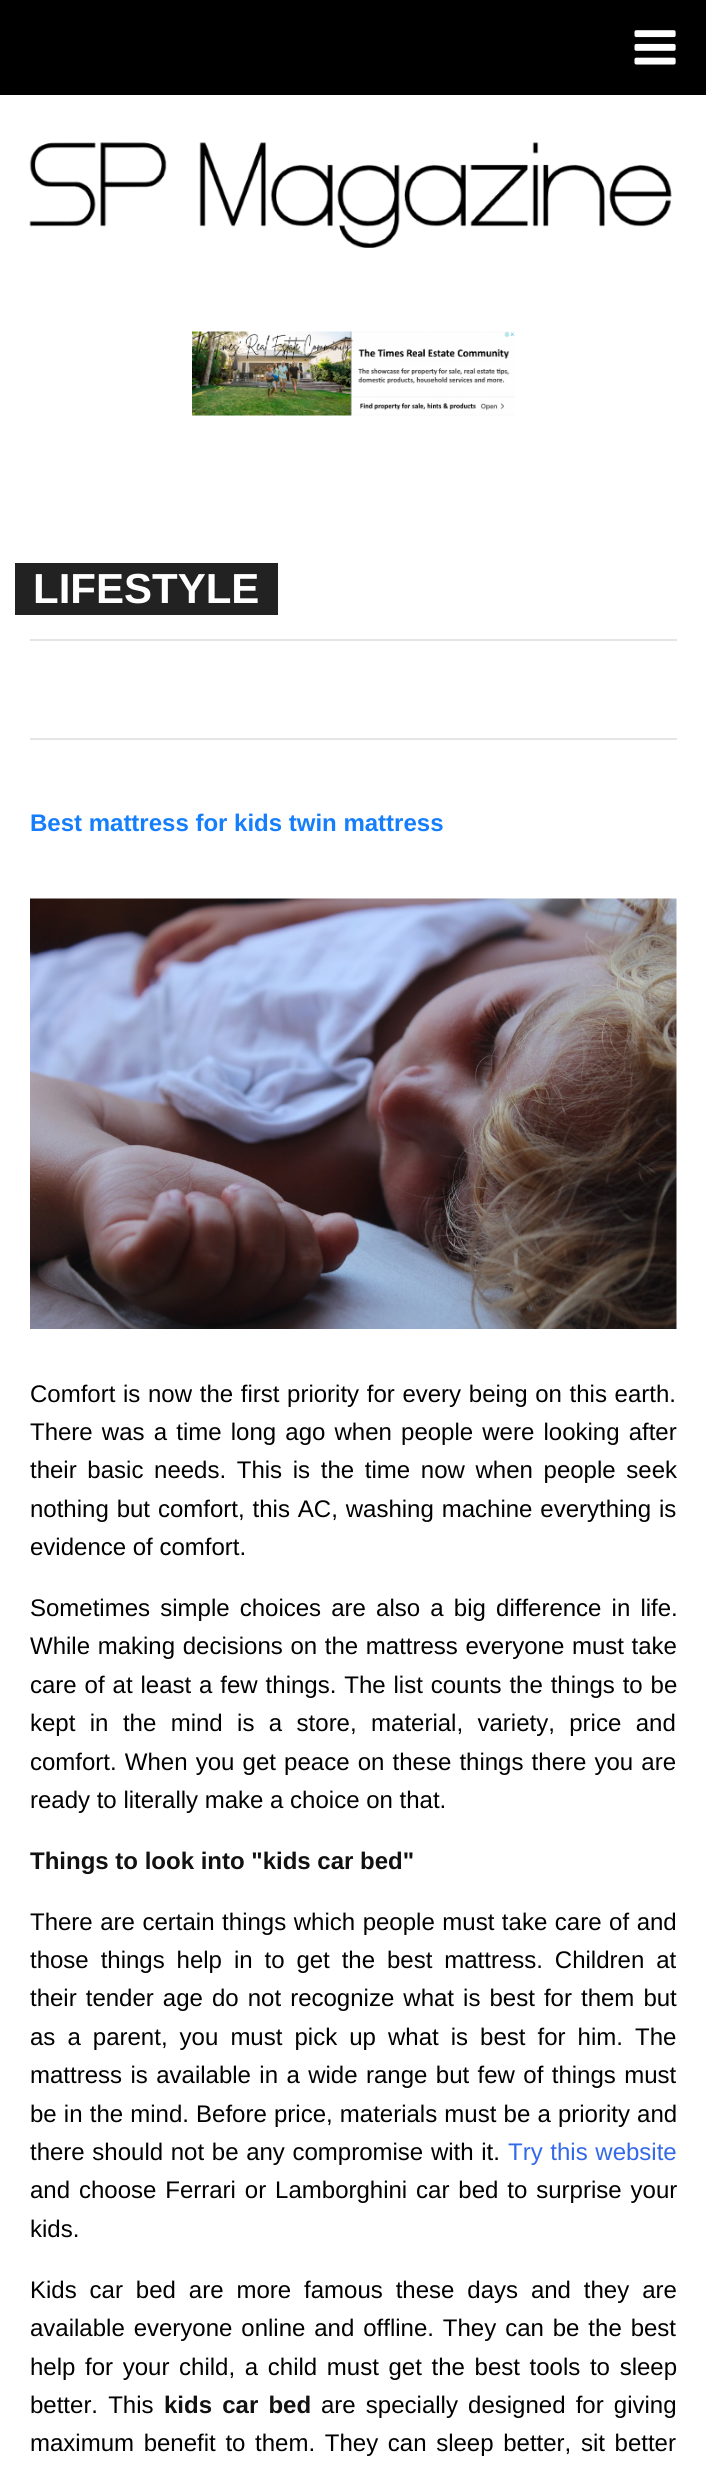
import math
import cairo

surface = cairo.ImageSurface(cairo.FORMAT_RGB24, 706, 2479)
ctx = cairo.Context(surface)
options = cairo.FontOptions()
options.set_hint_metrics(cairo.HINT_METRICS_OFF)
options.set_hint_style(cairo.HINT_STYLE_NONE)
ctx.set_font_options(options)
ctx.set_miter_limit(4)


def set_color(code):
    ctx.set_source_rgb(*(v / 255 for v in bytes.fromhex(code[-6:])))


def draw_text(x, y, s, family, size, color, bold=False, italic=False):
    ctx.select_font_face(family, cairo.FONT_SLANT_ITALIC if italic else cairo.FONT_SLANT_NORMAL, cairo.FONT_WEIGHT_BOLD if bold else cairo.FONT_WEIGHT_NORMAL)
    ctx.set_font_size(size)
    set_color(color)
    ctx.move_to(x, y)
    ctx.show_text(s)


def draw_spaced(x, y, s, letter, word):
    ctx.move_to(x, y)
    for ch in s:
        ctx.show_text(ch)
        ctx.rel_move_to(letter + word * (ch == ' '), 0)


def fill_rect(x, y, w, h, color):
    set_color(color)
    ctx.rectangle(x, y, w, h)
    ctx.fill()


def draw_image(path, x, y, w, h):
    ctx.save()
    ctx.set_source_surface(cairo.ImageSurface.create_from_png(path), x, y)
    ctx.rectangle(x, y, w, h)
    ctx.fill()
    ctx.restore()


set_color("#ffffff")
ctx.paint()
fill_rect(0, 0, 706, 95, "#000000")
draw_image("assets/img1.png", 634, 30, 42, 35)
draw_image("assets/img2.png", 29, 142, 643, 106)
draw_image("assets/img3.png", 192, 331, 323, 85)
fill_rect(15, 563, 263, 52, "#222222")
draw_text(33, 603, "LIFESTYLE", "Liberation Sans", 42, "#ffffff", bold=True)
fill_rect(30, 639, 647, 2, "#e5e5e5")
fill_rect(30, 738, 647, 2, "#e5e5e5")
draw_text(30, 831, "Best mattress for kids twin mattress", "Liberation Sans", 24, "#157efb", bold=True)
draw_image("assets/img4.png", 30, 898, 647, 431)
ctx.select_font_face("Liberation Sans")
set_color("#000000")
draw_spaced(30, 1402, "Comfort is now the first priority for every being on this earth.", 0, 1)
draw_spaced(30, 1440, "There was a time long ago when people were looking after", 0, 2.5)
draw_spaced(30, 1478, "their basic needs. This is the time now when people seek", 0, 4)
draw_spaced(30, 1517, "nothing but comfort, this AC, washing machine everything is", 0, 1.25)
draw_text(30, 1555, "evidence of comfort.", "Liberation Sans", 24, "#000000")
draw_spaced(30, 1616, "Sometimes simple choices are also a big difference in life.", 0, 3.5)
draw_spaced(30, 1654, "While making decisions on the mattress everyone must take", 0, 1)
draw_spaced(30, 1693, "care of at least a few things. The list counts the things to be", 0, 1.25)
draw_spaced(30, 1731, "kept in the mind is a store, material, variety, price and", 0, 7.75)
draw_spaced(30, 1770, "comfort. When you get peace on these things there you are", 0, 1.5)
draw_text(30, 1808, "ready to literally make a choice on that.", "Liberation Sans", 24, "#000000")
draw_text(30, 1869, "Things to look into \"kids car bed\"", "Liberation Sans", 24, "#111111", bold=True)
ctx.select_font_face("Liberation Sans")
set_color("#000000")
draw_spaced(30, 1930, "There are certain things which people must take care of and", 0, 0.9)
draw_spaced(30, 1968, "those things help in to get the best mattress. Children at", 0, 5.25)
draw_spaced(30, 2006, "their tender age do not recognize what is best for them but", 0, 2.4)
draw_spaced(30, 2045, "as a parent, you must pick up what is best for him. The", 0, 5.4)
draw_spaced(30, 2083, "mattress is available in a wide range but few of things must", 0, 1.75)
draw_spaced(30, 2122, "be in the mind. Before price, materials must be a priority and", 0, 0.5)
draw_spaced(30, 2160, "there should not be any compromise with it.", 0, 1)
set_color("#3369e8")
draw_spaced(508, 2160, "Try this website", 0, 1)
set_color("#000000")
draw_spaced(30, 2198, "and choose Ferrari or Lamborghini car bed to surprise your", 0, 2.25)
draw_text(30, 2237, "kids.", "Liberation Sans", 24, "#000000")
draw_spaced(30, 2298, "Kids car bed are more famous these days and they are", 0, 6.25)
draw_spaced(30, 2336, "available everyone online and offline. They can be the best", 0, 2.25)
draw_spaced(30, 2375, "help for your child, a child must get the best tools to sleep", 0, 3)
draw_spaced(30, 2413, "better. This", 0, 3.5)
ctx.select_font_face("Liberation Sans", cairo.FONT_SLANT_NORMAL, cairo.FONT_WEIGHT_BOLD)
set_color("#111111")
draw_spaced(164, 2413, "kids car bed", 0, 3.5)
ctx.select_font_face("Liberation Sans")
set_color("#000000")
draw_spaced(321, 2413, "are specially designed for giving", 0, 3.5)
draw_spaced(30, 2451, "maximum benefit to them. They can sleep better, sit better", 0, 3)
surface.write_to_png("output.png")
